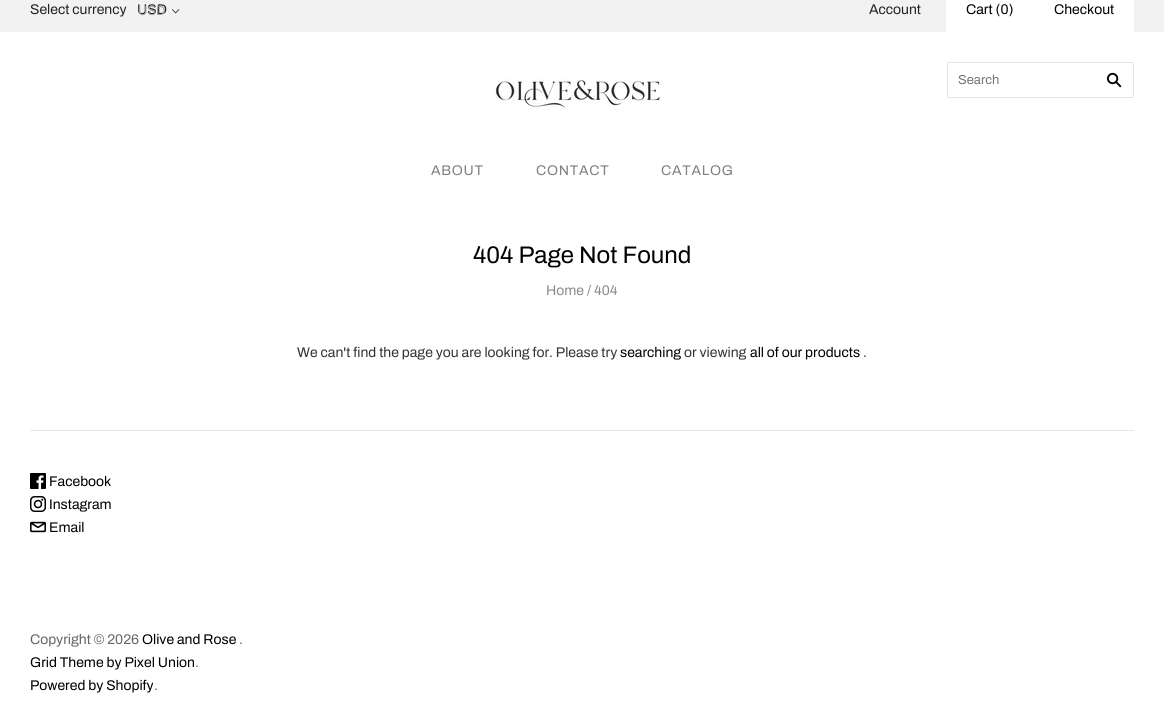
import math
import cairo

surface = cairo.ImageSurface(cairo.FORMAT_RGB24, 1164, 724)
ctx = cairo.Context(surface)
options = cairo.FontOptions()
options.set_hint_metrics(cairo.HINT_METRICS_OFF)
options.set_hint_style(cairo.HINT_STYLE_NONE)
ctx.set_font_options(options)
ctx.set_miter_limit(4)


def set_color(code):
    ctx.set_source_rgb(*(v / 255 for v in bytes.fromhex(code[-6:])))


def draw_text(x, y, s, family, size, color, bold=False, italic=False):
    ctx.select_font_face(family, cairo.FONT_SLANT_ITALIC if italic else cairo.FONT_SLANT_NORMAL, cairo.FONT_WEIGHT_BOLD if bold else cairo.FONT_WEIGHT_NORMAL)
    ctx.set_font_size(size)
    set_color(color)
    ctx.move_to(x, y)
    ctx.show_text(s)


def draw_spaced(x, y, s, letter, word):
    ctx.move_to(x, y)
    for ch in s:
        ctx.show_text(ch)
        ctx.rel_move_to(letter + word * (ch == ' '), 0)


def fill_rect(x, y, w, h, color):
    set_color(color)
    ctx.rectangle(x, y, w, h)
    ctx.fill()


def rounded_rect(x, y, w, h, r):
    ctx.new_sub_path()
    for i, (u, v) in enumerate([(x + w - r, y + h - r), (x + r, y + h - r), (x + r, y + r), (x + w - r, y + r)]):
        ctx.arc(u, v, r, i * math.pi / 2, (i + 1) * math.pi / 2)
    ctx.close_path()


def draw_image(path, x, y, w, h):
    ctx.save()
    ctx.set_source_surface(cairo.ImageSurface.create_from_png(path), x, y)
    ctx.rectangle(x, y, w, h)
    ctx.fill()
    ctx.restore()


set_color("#ffffff")
ctx.paint()
fill_rect(0, 0, 1164, 32, "#f2f2f2")
draw_text(30, 14, "Select currency", "Archivo", 14, "#242424")
draw_text(137, 14, "USD", "Archivo", 14, "#242424")
draw_image("assets/img1.png", 172, 9, 8, 5)
draw_text(138, 15, "USD", "Liberation Sans", 13, "#9d9d9d")
draw_text(869, 14, "Account", "Archivo", 14, "#242424")
fill_rect(946, 0, 188, 32, "#ffffff")
draw_text(966, 14, "Cart (0)", "Archivo", 14, "#000000")
draw_text(1054, 14, "Checkout", "Archivo", 14, "#000000")
draw_image("assets/img2.png", 494, 78, 168, 32)
rounded_rect(947.5, 62.5, 186, 35, 1.5)
set_color("#e4e4e4")
ctx.set_line_width(1)
ctx.stroke()
draw_text(958, 84, "Search", "Archivo", 13, "#757575")
draw_image("assets/img3.png", 1106, 72, 16, 16)
ctx.set_font_size(14)
set_color("#808080")
draw_spaced(431, 175, "ABOUT", 0.75, 0)
draw_spaced(536, 175, "CONTACT", 0.75, 0)
draw_spaced(661, 175, "CATALOG", 0.75, 0)
draw_text(473, 263, "404 Page Not Found", "Archivo", 24, "#000000")
draw_text(546, 295, "Home / 404", "Archivo", 14, "#8a8a8a")
draw_text(297, 357, "We can't find the page you are looking for. Please try", "Archivo", 14, "#333333")
draw_text(620, 357, "searching", "Archivo", 14, "#000000")
draw_text(684, 357, "or viewing", "Archivo", 14, "#333333")
draw_text(750, 357, "all of our products", "Archivo", 14, "#000000")
draw_text(863, 357, ".", "Archivo", 14, "#333333")
fill_rect(30, 430, 1104, 1, "#e4e4e4")
draw_image("assets/img4.png", 30, 473, 16, 16)
draw_text(49, 486, "Facebook", "Archivo", 14, "#000000")
draw_image("assets/img5.png", 30, 496, 16, 16)
draw_text(49, 509, "Instagram", "Archivo", 14, "#000000")
draw_image("assets/img6.png", 30, 521, 16, 12)
draw_text(49, 532, "Email", "Archivo", 14, "#000000")
draw_text(30, 644, "Copyright © 2026", "Archivo", 14, "#666666")
draw_text(142, 644, "Olive and Rose", "Archivo", 14, "#000000")
draw_text(239, 644, ".", "Archivo", 14, "#666666")
draw_text(30, 667, "Grid Theme by Pixel Union", "Archivo", 14, "#000000")
draw_text(195, 667, ".", "Archivo", 14, "#666666")
draw_text(30, 690, "Powered by Shopify", "Archivo", 14, "#000000")
draw_text(154, 690, ".", "Archivo", 14, "#666666")
surface.write_to_png("output.png")
